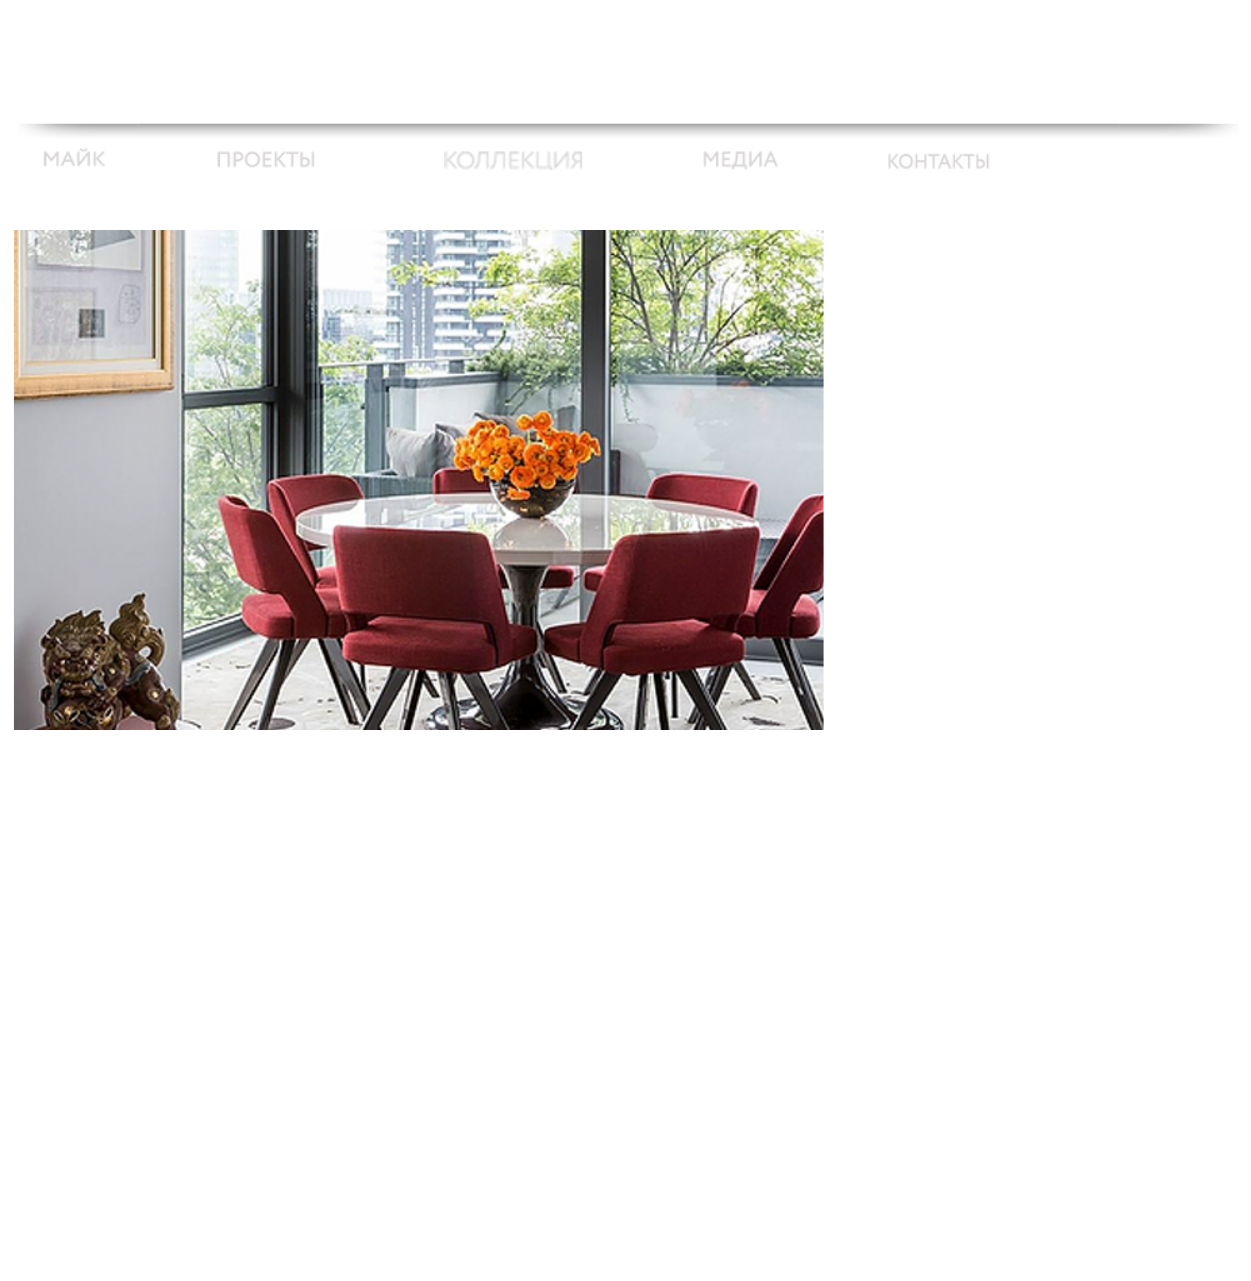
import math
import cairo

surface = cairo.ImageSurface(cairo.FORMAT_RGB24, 1251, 1281)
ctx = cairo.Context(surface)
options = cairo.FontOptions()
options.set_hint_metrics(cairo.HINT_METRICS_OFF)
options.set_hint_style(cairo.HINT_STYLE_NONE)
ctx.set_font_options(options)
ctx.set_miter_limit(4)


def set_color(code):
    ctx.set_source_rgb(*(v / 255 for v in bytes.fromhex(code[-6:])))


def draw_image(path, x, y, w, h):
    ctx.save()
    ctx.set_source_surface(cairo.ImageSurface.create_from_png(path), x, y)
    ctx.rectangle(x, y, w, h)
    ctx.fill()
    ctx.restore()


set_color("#ffffff")
ctx.paint()
draw_image("assets/img2.png", 138, 123, 981, 15)
draw_image("assets/img1.png", 18, 123, 121, 15)
draw_image("assets/img3.png", 1118, 123, 121, 15)
draw_image("assets/img4.png", 43, 147, 62, 20)
draw_image("assets/img5.png", 217, 151, 98, 17)
draw_image("assets/img6.png", 444, 151, 139, 19)
draw_image("assets/img7.png", 703, 151, 75, 19)
draw_image("assets/img8.png", 888, 153, 102, 16)
draw_image("assets/img9.png", 13, 230, 811, 500)
surface.write_to_png("output.png")
